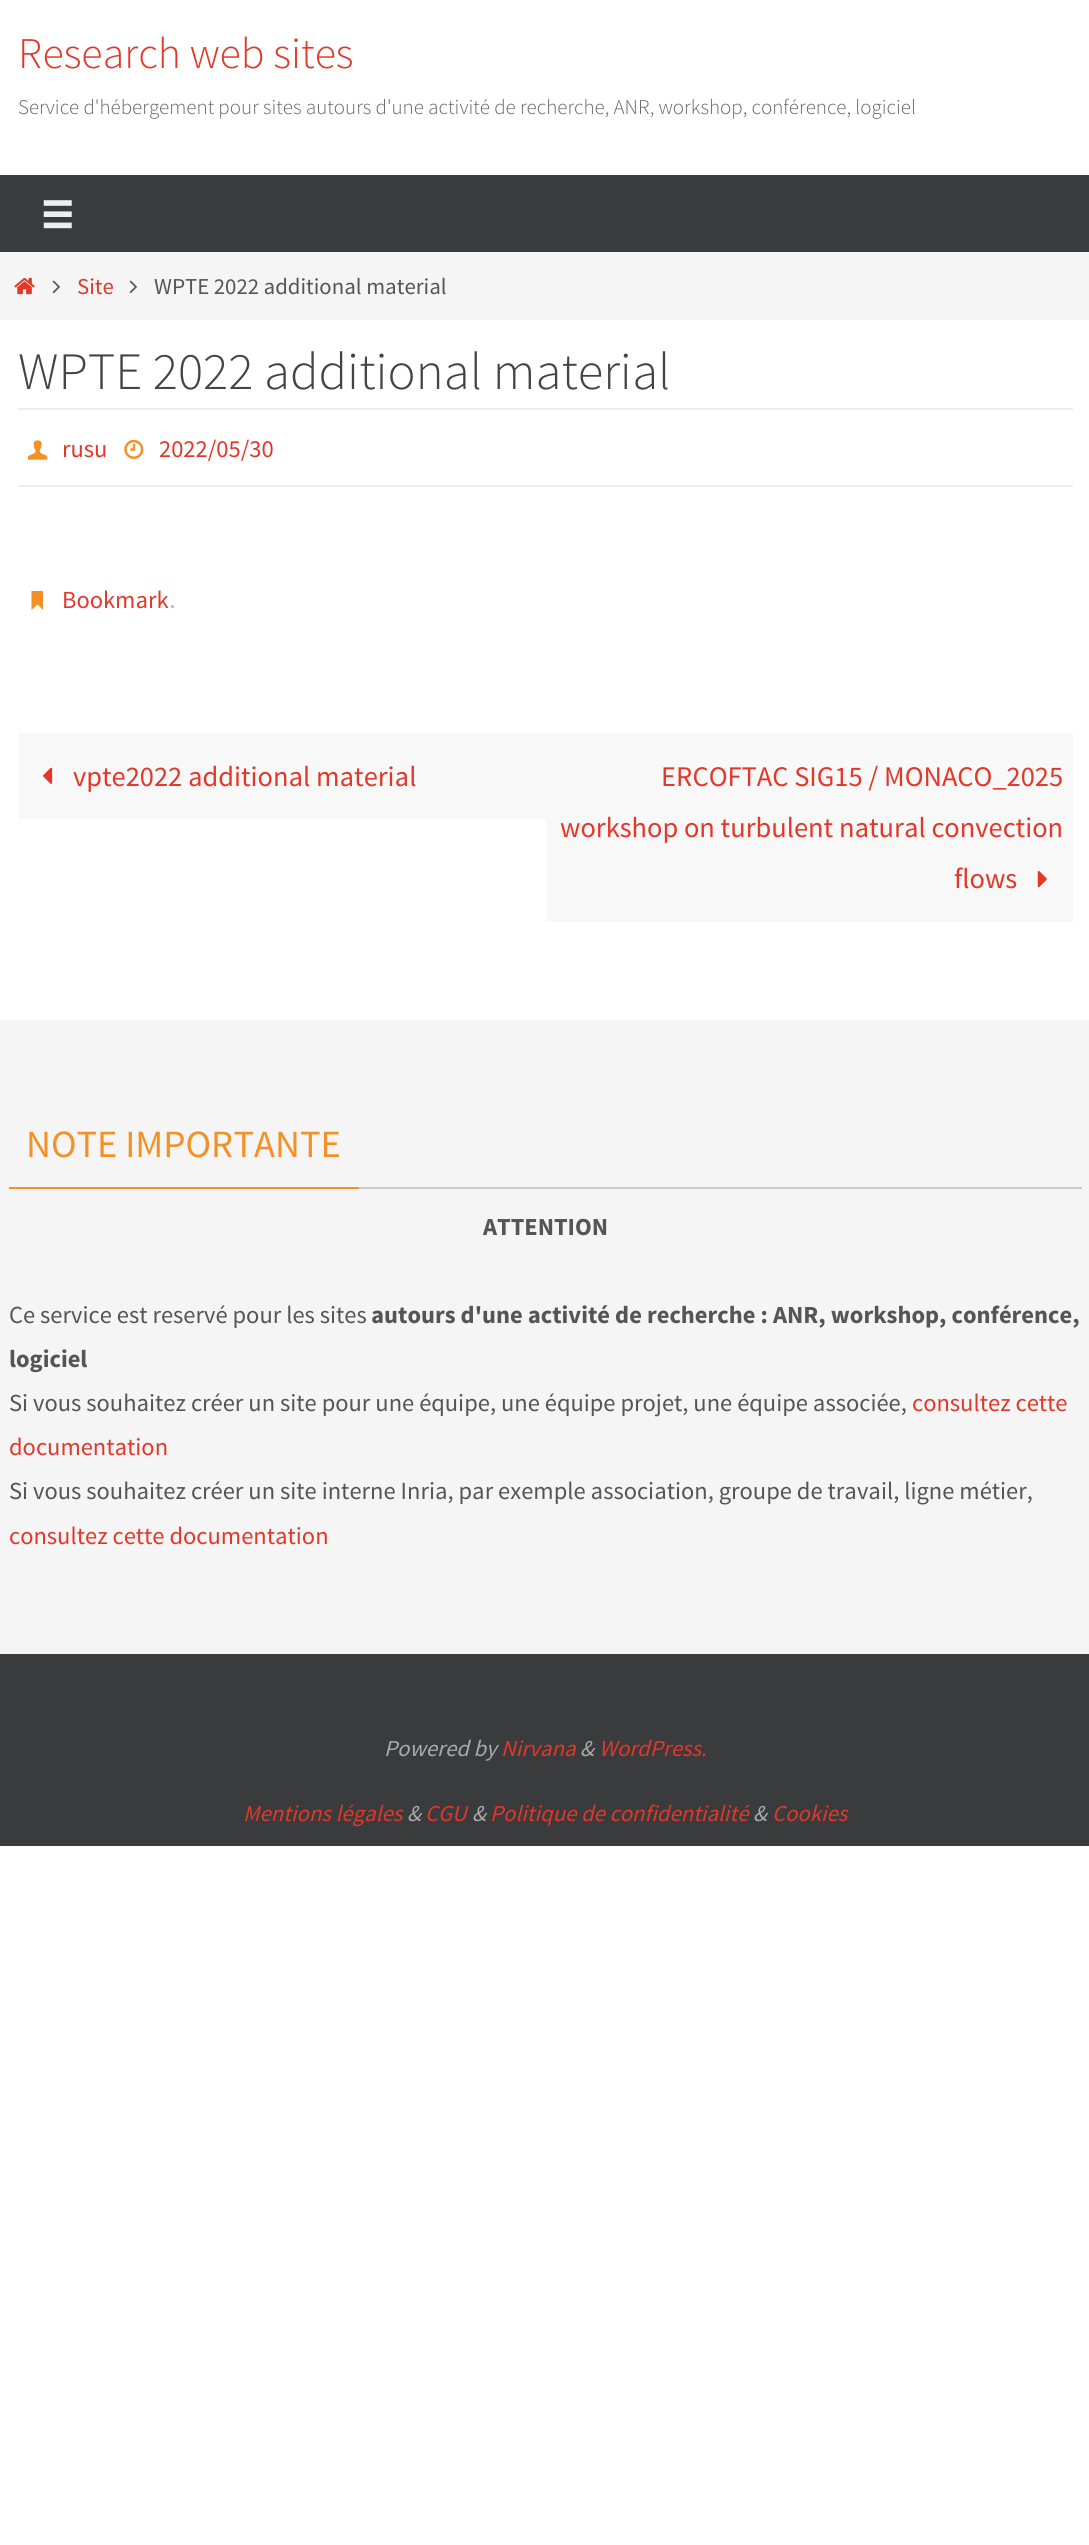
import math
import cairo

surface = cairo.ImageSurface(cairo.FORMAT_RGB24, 1089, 2545)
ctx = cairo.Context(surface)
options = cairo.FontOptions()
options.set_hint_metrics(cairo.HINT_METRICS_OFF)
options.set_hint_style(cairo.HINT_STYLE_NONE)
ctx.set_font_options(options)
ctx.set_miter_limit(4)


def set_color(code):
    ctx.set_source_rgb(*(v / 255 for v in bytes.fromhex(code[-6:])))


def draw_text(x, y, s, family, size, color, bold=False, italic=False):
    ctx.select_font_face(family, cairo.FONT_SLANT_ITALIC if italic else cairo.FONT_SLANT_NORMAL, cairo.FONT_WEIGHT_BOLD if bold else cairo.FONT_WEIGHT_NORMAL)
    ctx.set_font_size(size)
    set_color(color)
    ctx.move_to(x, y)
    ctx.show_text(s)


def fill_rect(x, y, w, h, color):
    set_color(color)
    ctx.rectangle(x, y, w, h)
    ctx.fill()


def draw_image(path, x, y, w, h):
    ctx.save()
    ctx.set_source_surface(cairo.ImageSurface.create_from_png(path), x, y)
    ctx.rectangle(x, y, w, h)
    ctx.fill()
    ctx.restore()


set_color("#ffffff")
ctx.paint()
draw_text(18, 68, "Research web sites", "Source Sans Pro Light", 43.75, "#e33729")
draw_text(18, 114, "Service d'hébergement pour sites autours d'une activité de recherche, ANR, workshop, conférence, logiciel", "Source Sans Pro Light", 21, "#666666")
fill_rect(0, 175, 1089, 77, "#3a3b3d")
draw_image("assets/img1.png", 43, 200, 29, 29)
fill_rect(0, 252, 1089, 68, "#f5f5f5")
draw_image("assets/img2.png", 14, 277, 21, 18)
draw_image("assets/img3.png", 52, 280, 8, 14)
draw_text(77, 294, "Site", "Source Sans Pro", 22.75, "#e33729")
draw_image("assets/img3.png", 129, 280, 8, 14)
draw_text(154, 294, "WPTE 2022 additional material", "Source Sans Pro", 22.75, "#555555")
draw_text(18, 389, "WPTE 2022 additional material", "Source Sans Pro Light", 52.5, "#444444")
fill_rect(18, 408, 1055, 2, "#eeeeee")
fill_rect(18, 485, 1055, 2, "#eeeeee")
draw_image("assets/img4.png", 28, 440, 20, 20)
draw_text(62, 457, "rusu", "Source Sans Pro", 24.5, "#e33729")
draw_image("assets/img5.png", 124, 439, 20, 20)
draw_text(159, 457, "2022/05/30", "Source Sans Pro", 24.5, "#e33729")
set_color("#f39126")
ctx.new_path()
ctx.move_to(31.5, 608.5)
ctx.line_to(31.5, 591)
ctx.line_to(43, 591)
ctx.line_to(43, 610)
ctx.line_to(37.5, 604.5)
ctx.line_to(31.5, 610)
ctx.close_path()
ctx.fill()
draw_text(62, 608, "Bookmark", "Source Sans Pro", 24.5, "#e33729")
draw_text(169, 608, ".", "Source Sans Pro", 28, "#c1c1c1")
fill_rect(18, 733, 528, 86, "#f8f8f8")
draw_image("assets/img6.png", 43, 767, 10, 17)
draw_text(73, 786, "vpte2022 additional material", "Source Sans Pro", 28.4, "#e33729")
fill_rect(546, 733, 527, 189, "#f8f8f8")
draw_text(661, 786, "ERCOFTAC SIG15 / MONACO_2025", "Source Sans Pro", 28.4, "#e33729")
draw_text(560, 837, "workshop on turbulent natural convection", "Source Sans Pro", 28.4, "#e33729")
draw_text(954, 888, "flows", "Source Sans Pro", 28.4, "#e33729")
draw_image("assets/img7.png", 1037, 871, 10, 17)
fill_rect(0, 1020, 1089, 634, "#f5f5f5")
fill_rect(359, 1187, 723, 2, "#cccccc")
fill_rect(9, 1187, 350, 2, "#f39126")
draw_text(26, 1157, "NOTE IMPORTANTE", "Source Sans Pro", 38.5, "#f39126")
draw_text(483, 1235, "ATTENTION", "Source Sans Pro", 24.5, "#555555", bold=True)
draw_text(9, 1323, "Ce service est reservé pour les sites", "Source Sans Pro", 24.5, "#555555")
draw_text(371, 1323, "autours d'une activité de recherche : ANR, workshop, conférence,", "Source Sans Pro", 24.5, "#555555", bold=True)
draw_text(9, 1367, "logiciel", "Source Sans Pro", 24.5, "#555555", bold=True)
draw_text(9, 1411, "Si vous souhaitez créer un site pour une équipe, une équipe projet, une équipe associée,", "Source Sans Pro", 24.5, "#555555")
draw_text(912, 1411, "consultez cette", "Source Sans Pro", 24.5, "#e33729")
draw_text(9, 1455, "documentation", "Source Sans Pro", 24.5, "#e33729")
draw_text(9, 1499, "Si vous souhaitez créer un site interne Inria, par exemple association, groupe de travail, ligne métier,", "Source Sans Pro", 24.5, "#555555")
draw_text(9, 1544, "consultez cette documentation", "Source Sans Pro", 24.5, "#e33729")
fill_rect(0, 1654, 1089, 192, "#3a3b3d")
draw_text(384, 1756, "Powered by", "Source Sans Pro", 22.75, "#aaaaaa", italic=True)
draw_text(501, 1756, "Nirvana", "Source Sans Pro", 22.75, "#e33729", italic=True)
draw_text(580, 1756, "&", "Source Sans Pro", 22.75, "#aaaaaa", italic=True)
draw_text(599, 1756, "WordPress.", "Source Sans Pro", 22.75, "#e33729", italic=True)
draw_text(243, 1821, "Mentions légales", "Source Sans Pro", 22.75, "#e33729", italic=True)
draw_text(407, 1821, "&", "Source Sans Pro", 22.75, "#aaaaaa", italic=True)
draw_text(425, 1821, "CGU", "Source Sans Pro", 22.75, "#e33729", italic=True)
draw_text(472, 1821, "&", "Source Sans Pro", 22.75, "#aaaaaa", italic=True)
draw_text(490, 1821, "Politique de confidentialité", "Source Sans Pro", 22.75, "#e33729", italic=True)
draw_text(753, 1821, "&", "Source Sans Pro", 22.75, "#aaaaaa", italic=True)
draw_text(772, 1821, "Cookies", "Source Sans Pro", 22.75, "#e33729", italic=True)
surface.write_to_png("output.png")
